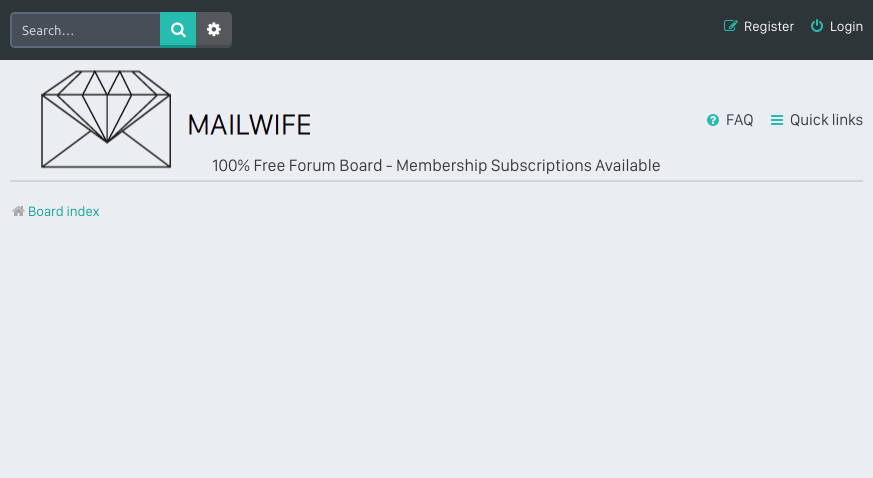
import math
import cairo

surface = cairo.ImageSurface(cairo.FORMAT_RGB24, 873, 478)
ctx = cairo.Context(surface)
options = cairo.FontOptions()
options.set_hint_metrics(cairo.HINT_METRICS_OFF)
options.set_hint_style(cairo.HINT_STYLE_NONE)
ctx.set_font_options(options)
ctx.set_miter_limit(4)


def set_color(code):
    ctx.set_source_rgb(*(v / 255 for v in bytes.fromhex(code[-6:])))


def draw_text(x, y, s, family, size, color, bold=False, italic=False):
    ctx.select_font_face(family, cairo.FONT_SLANT_ITALIC if italic else cairo.FONT_SLANT_NORMAL, cairo.FONT_WEIGHT_BOLD if bold else cairo.FONT_WEIGHT_NORMAL)
    ctx.set_font_size(size)
    set_color(color)
    ctx.move_to(x, y)
    ctx.show_text(s)


def fill_rect(x, y, w, h, color):
    set_color(color)
    ctx.rectangle(x, y, w, h)
    ctx.fill()


def draw_image(path, x, y, w, h):
    ctx.save()
    ctx.set_source_surface(cairo.ImageSurface.create_from_png(path), x, y)
    ctx.rectangle(x, y, w, h)
    ctx.fill()
    ctx.restore()


set_color("#eaedf1")
ctx.paint()
fill_rect(0, 0, 873, 60, "#2e3539")
set_color("#474e58")
ctx.new_path()
ctx.move_to(15, 14)
ctx.line_to(160, 14)
ctx.line_to(160, 46)
ctx.line_to(15, 46)
ctx.curve_to(13.5, 46, 12, 44.5, 12, 43)
ctx.line_to(12, 17)
ctx.curve_to(12, 15.5, 13.5, 14, 15, 14)
ctx.close_path()
ctx.fill()
set_color("#5a697d")
ctx.set_fill_rule(cairo.FILL_RULE_EVEN_ODD)
ctx.new_path()
ctx.move_to(15, 12)
ctx.line_to(160, 12)
ctx.line_to(160, 48)
ctx.line_to(15, 48)
ctx.curve_to(12, 48, 10, 46, 10, 43)
ctx.line_to(10, 17)
ctx.curve_to(10, 14, 12, 12, 15, 12)
ctx.close_path()
ctx.move_to(15, 14)
ctx.line_to(160, 14)
ctx.line_to(160, 46)
ctx.line_to(15, 46)
ctx.curve_to(13, 46, 12, 45, 12, 43)
ctx.line_to(12, 17)
ctx.curve_to(12, 15, 13, 14, 15, 14)
ctx.close_path()
ctx.fill()
draw_text(22, 35, "Search…", "Ubuntu", 13, "#c8cacd")
fill_rect(160, 12, 36, 33, "#26bcb0")
fill_rect(160, 45, 36, 3, "#15958a")
draw_image("assets/img1.png", 171, 22, 15, 16)
set_color("#54585b")
ctx.new_path()
ctx.move_to(196, 12)
ctx.line_to(227, 12)
ctx.curve_to(230, 12, 232, 14, 232, 17)
ctx.line_to(232, 43)
ctx.curve_to(232, 46, 230, 48, 227, 48)
ctx.line_to(196, 48)
ctx.close_path()
ctx.fill()
set_color("#444a4f")
ctx.set_fill_rule(cairo.FILL_RULE_WINDING)
ctx.new_path()
ctx.move_to(196, 45)
ctx.line_to(196, 48)
ctx.line_to(227, 48)
ctx.curve_to(230, 48, 232, 46, 232, 43)
ctx.line_to(232, 40)
ctx.curve_to(232, 43, 230, 45, 227, 45)
ctx.close_path()
ctx.fill()
draw_image("assets/img2.png", 207, 22, 14, 15)
draw_image("assets/img3.png", 724, 20, 14, 11)
draw_text(744, 31, "Register", "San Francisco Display", 14, "#ffffff")
draw_image("assets/img4.png", 811, 19, 12, 13)
draw_text(830, 31, "Login", "San Francisco Display", 14, "#ffffff")
draw_image("assets/img5.png", 707, 114, 12, 12)
draw_text(726, 125, "FAQ", "San Francisco Display", 16, "#323a45")
draw_image("assets/img6.png", 771, 115, 12, 10)
draw_text(790, 125, "Quick links", "San Francisco Display", 16, "#323a45")
fill_rect(10, 180, 853, 2, "#cfd7dc")
draw_image("assets/img7.png", 12, 206, 13, 10)
draw_text(28, 216, "Board index", "San Francisco Display", 14, "#0fa195")
draw_image("assets/img8.png", 41, 69, 269, 100)
draw_text(212, 171, "100% Free Forum Board - Membership Subscriptions Available", "San Francisco Display", 17, "#383838")
surface.write_to_png("output.png")
